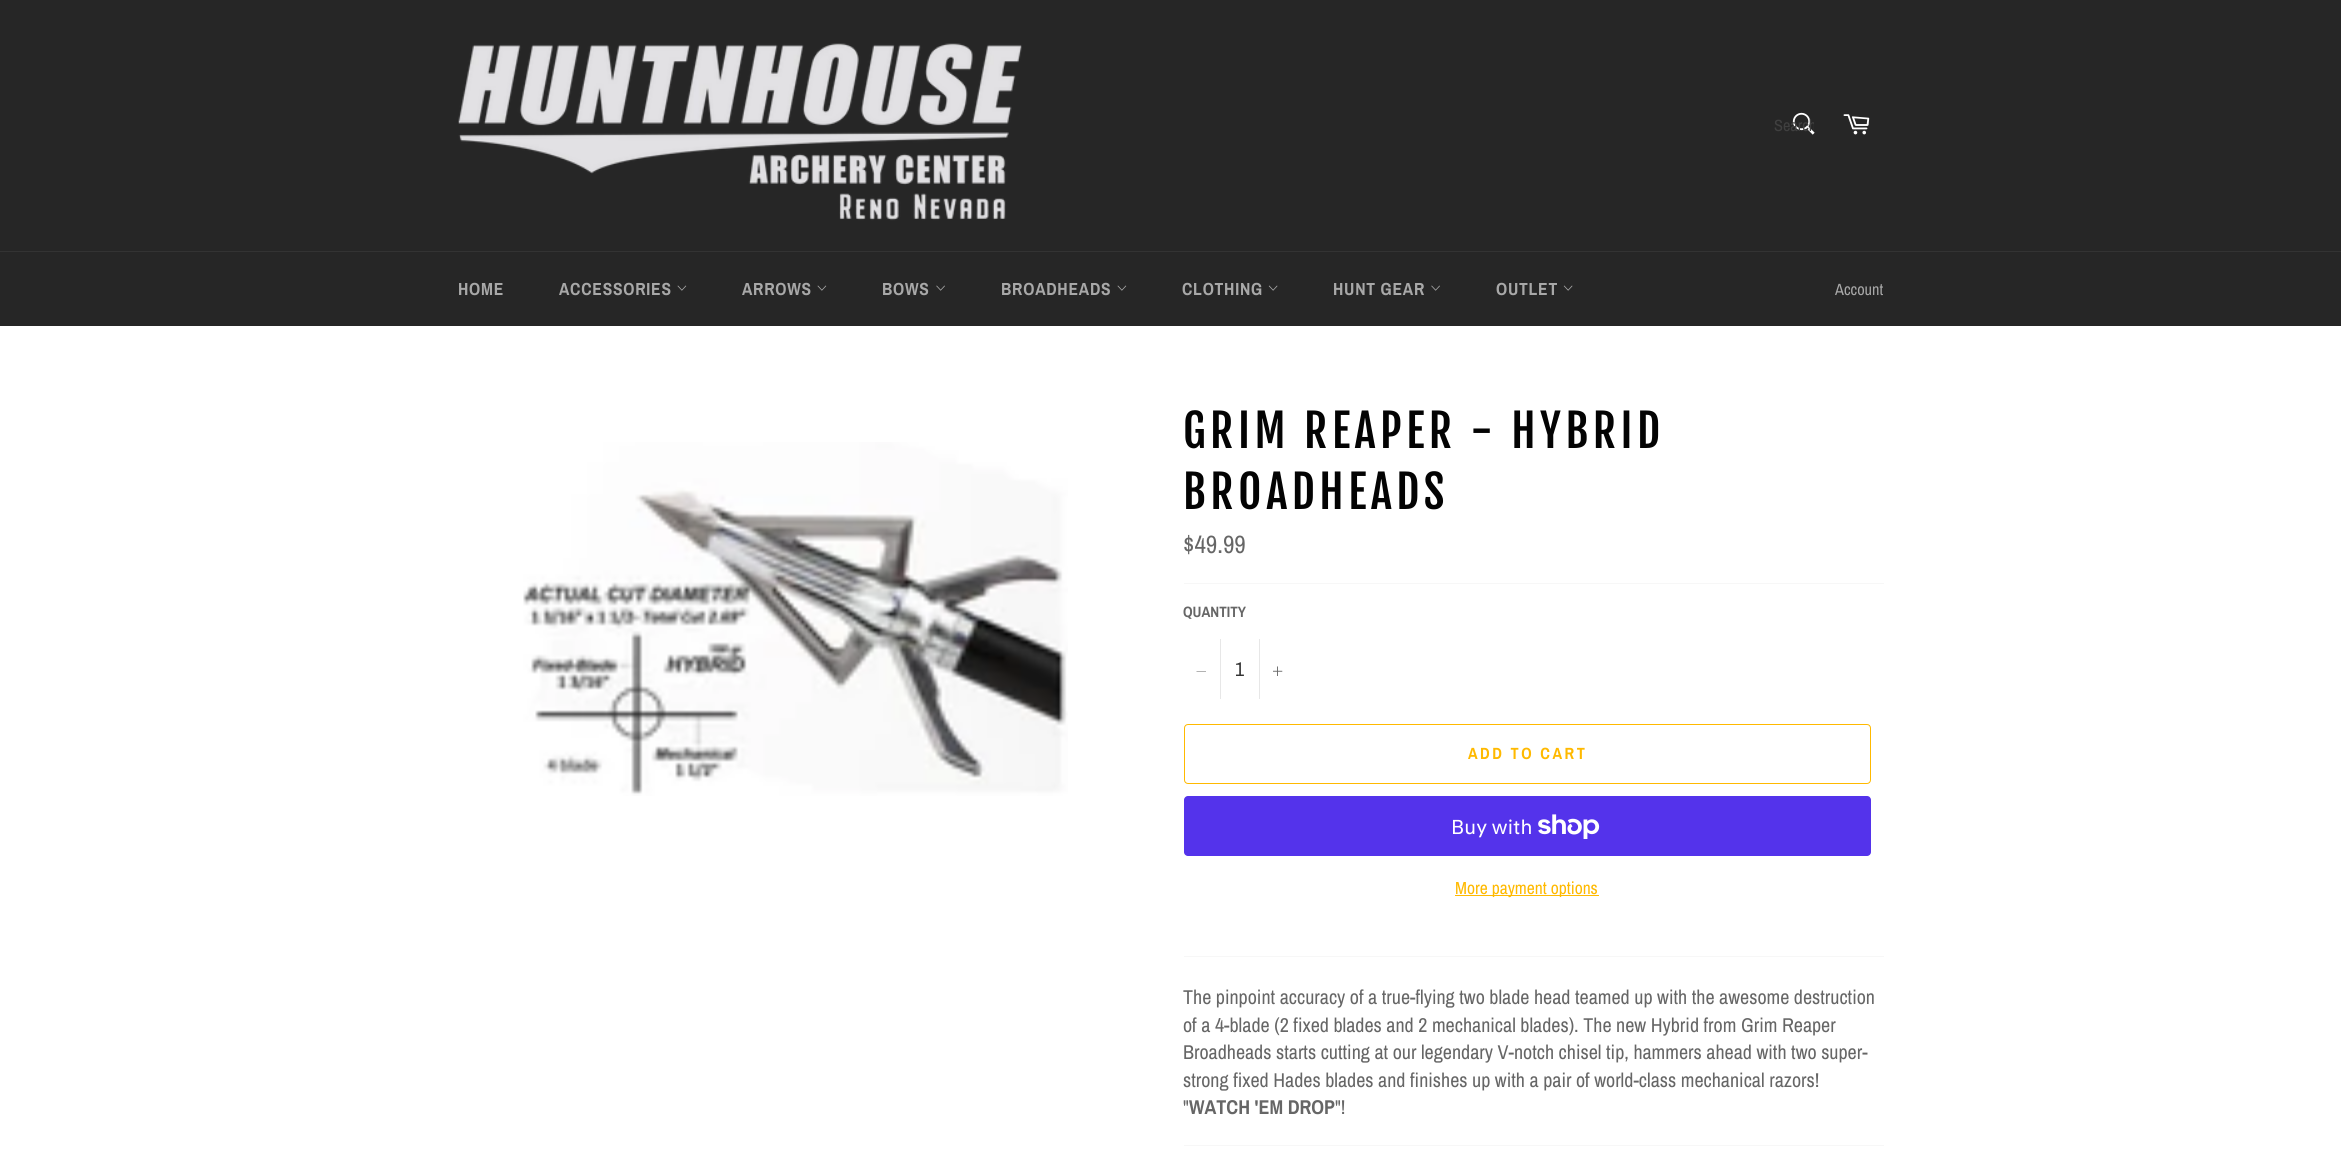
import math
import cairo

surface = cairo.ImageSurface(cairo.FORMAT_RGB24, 2341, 1163)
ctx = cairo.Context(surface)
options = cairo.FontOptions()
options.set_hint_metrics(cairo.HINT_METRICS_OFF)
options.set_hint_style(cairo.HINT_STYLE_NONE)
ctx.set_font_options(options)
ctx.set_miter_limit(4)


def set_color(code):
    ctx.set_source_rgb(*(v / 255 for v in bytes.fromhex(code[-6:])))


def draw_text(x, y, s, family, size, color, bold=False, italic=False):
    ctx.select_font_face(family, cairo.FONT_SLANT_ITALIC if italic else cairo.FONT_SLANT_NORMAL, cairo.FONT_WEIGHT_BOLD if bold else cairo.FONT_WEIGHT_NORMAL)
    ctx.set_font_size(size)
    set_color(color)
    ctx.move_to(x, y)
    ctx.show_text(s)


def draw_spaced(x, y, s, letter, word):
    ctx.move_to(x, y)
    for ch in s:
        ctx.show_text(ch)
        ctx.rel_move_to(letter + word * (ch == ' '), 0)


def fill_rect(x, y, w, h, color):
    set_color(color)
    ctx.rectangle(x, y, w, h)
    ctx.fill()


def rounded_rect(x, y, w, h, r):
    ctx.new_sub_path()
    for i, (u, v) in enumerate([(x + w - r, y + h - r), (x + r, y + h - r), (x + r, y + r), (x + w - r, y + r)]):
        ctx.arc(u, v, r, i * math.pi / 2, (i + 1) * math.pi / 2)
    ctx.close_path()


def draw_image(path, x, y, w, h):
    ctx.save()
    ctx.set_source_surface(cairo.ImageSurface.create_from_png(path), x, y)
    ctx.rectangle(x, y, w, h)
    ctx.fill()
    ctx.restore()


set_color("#262626")
ctx.paint()
draw_image("assets/img1.png", 458, 43, 564, 178)
draw_image("assets/img2.png", 1792, 112, 23, 23)
ctx.save()
ctx.rectangle(1774, 115, 40, 21)
ctx.clip()
draw_text(1774, 131, "Search", "Archivo Narrow", 16.25, "#404040")
ctx.restore()
draw_image("assets/img3.png", 1843, 114, 27, 21)
fill_rect(0, 251, 2341, 1, "#333333")
ctx.select_font_face("Archivo Narrow", cairo.FONT_SLANT_NORMAL, cairo.FONT_WEIGHT_BOLD)
ctx.set_font_size(17.5)
set_color("#a8a8a8")
draw_spaced(458, 295, "HOME", 0.75, 0)
draw_spaced(559, 295, "ACCESSORIES", 0.75, 0)
draw_image("assets/img4.png", 677, 285, 10, 6)
draw_spaced(742, 295, "ARROWS", 0.75, 0)
draw_image("assets/img4.png", 817, 285, 10, 6)
draw_spaced(882, 295, "BOWS", 0.75, 0)
draw_image("assets/img5.png", 936, 285, 9, 6)
draw_spaced(1001, 295, "BROADHEADS", 0.75, 0)
draw_image("assets/img4.png", 1117, 285, 10, 6)
draw_spaced(1182, 295, "CLOTHING", 0.75, 0)
draw_image("assets/img6.png", 1268, 285, 10, 6)
draw_spaced(1333, 295, "HUNT GEAR", 0.75, 0)
draw_image("assets/img5.png", 1431, 285, 9, 6)
draw_spaced(1496, 295, "OUTLET", 0.75, 0)
draw_image("assets/img6.png", 1563, 285, 10, 6)
draw_text(1835, 295, "Account", "Archivo Narrow", 16.25, "#a8a8a8")
fill_rect(0, 326, 2341, 837, "#ffffff")
draw_image("assets/img7.png", 523, 442, 545, 354)
ctx.select_font_face("Fjalla One")
ctx.set_font_size(45)
set_color("#030303")
draw_spaced(1183, 448, "GRIM REAPER - HYBRID", 4.5, 0)
draw_spaced(1183, 509, "BROADHEADS", 4.5, 0)
draw_text(1183, 553, "$49.99", "Archivo Narrow", 25, "#666666")
fill_rect(1184, 583, 700, 1, "#f7f7f7")
draw_text(1183, 617, "QUANTITY", "Archivo Narrow", 15, "#666666", bold=True)
fill_rect(1220, 639, 1, 60, "#e7e7e7")
set_color("#666666")
ctx.set_fill_rule(cairo.FILL_RULE_EVEN_ODD)
ctx.new_path()
ctx.move_to(1206, 671)
ctx.line_to(1206, 671.5)
ctx.line_to(1196.5, 671.5)
ctx.line_to(1196.5, 671)
ctx.close_path()
ctx.fill()
draw_text(1235, 676, "1", "Archivo Narrow", 20, "#333333")
fill_rect(1259, 639, 1, 60, "#e7e7e7")
draw_image("assets/img8.png", 1273, 666, 10, 10)
rounded_rect(1184.5, 724.5, 686, 59, 3.5)
set_color("#ffb900")
ctx.set_line_width(1)
ctx.stroke()
ctx.select_font_face("Archivo Narrow", cairo.FONT_SLANT_NORMAL, cairo.FONT_WEIGHT_BOLD)
ctx.set_font_size(16.25)
draw_spaced(1468, 759, "ADD TO CART", 2.5, 0)
set_color("#5433eb")
rounded_rect(1184, 796, 687, 60, 4)
ctx.fill()
draw_text(1451, 834, "Buy with", "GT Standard", 20, "#ffffff")
draw_image("assets/img9.png", 1538, 814, 62, 25)
fill_rect(1455, 895, 144, 1, "#ffb900")
draw_text(1455, 894, "More payment options", "Archivo Narrow", 17.5, "#ffb900")
fill_rect(1184, 956, 700, 1, "#f7f7f7")
draw_text(1183, 1004, "The pinpoint accuracy of a true-flying two blade head teamed up with the awesome destruction", "Archivo Narrow", 20, "#666666")
draw_text(1183, 1032, "of a 4-blade (2 fixed blades and 2 mechanical blades). The new Hybrid from Grim Reaper", "Archivo Narrow", 20, "#666666")
draw_text(1183, 1059, "Broadheads starts cutting at our legendary V-notch chisel tip, hammers ahead with two super-", "Archivo Narrow", 20, "#666666")
draw_text(1183, 1087, "strong fixed Hades blades and finishes up with a pair of world-class mechanical razors!", "Archivo Narrow", 20, "#666666")
draw_text(1183, 1114, "\"", "Archivo Narrow", 20, "#666666")
draw_text(1189, 1114, "WATCH 'EM DROP", "Archivo Narrow", 20, "#666666", bold=True)
draw_text(1335, 1114, "\"!", "Archivo Narrow", 20, "#666666")
fill_rect(1184, 1145, 700, 1, "#f7f7f7")
surface.write_to_png("output.png")
